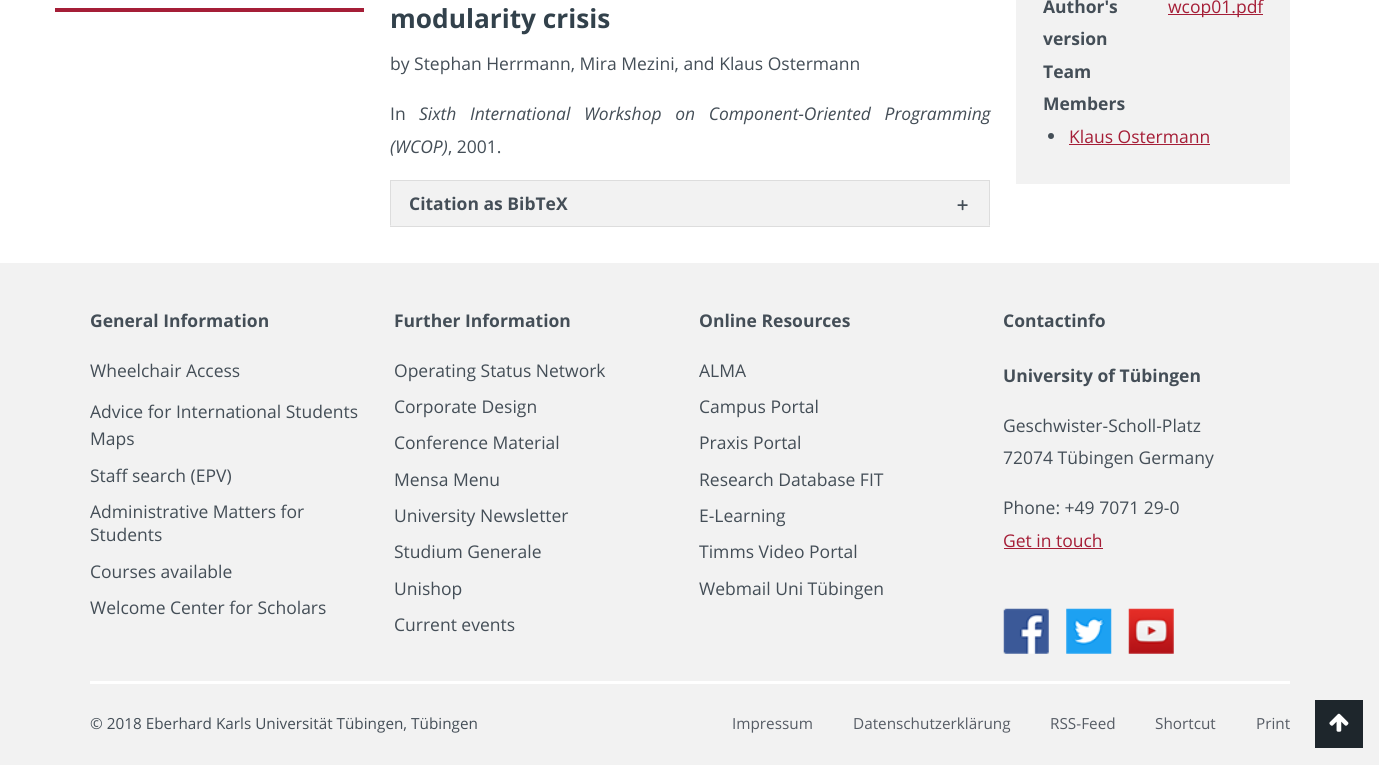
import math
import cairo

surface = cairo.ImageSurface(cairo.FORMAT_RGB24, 1379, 765)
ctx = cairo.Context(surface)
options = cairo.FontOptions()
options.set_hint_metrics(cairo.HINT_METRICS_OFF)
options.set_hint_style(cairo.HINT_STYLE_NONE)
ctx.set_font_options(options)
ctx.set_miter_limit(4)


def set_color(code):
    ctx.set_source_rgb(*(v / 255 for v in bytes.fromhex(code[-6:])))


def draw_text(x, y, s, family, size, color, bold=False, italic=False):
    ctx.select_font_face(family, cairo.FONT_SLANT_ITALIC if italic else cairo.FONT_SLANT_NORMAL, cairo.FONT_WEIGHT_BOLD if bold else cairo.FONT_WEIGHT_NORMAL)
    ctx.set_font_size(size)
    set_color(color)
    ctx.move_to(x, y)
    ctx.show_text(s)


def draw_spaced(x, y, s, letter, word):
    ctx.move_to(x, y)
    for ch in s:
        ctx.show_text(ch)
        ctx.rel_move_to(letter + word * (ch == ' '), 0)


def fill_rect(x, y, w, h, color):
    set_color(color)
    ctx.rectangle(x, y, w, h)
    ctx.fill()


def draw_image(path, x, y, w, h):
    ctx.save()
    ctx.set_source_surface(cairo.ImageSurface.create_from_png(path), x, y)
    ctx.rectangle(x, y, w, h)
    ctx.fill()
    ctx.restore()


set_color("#ffffff")
ctx.paint()
fill_rect(55, 8, 309, 4, "#a51e37")
draw_text(390, 28, "modularity crisis", "Open Sans", 26.25, "#32414b", bold=True)
draw_text(390, 70, "by Stephan Herrmann, Mira Mezini, and Klaus Ostermann", "Open Sans", 17.5, "#444e57")
draw_text(390, 120, "In", "Open Sans", 17.5, "#444e57")
ctx.select_font_face("Open Sans", cairo.FONT_SLANT_ITALIC)
draw_spaced(419, 120, "Sixth International Workshop on Component-Oriented Programming", 0, 9)
draw_text(390, 153, "(WCOP)", "Open Sans", 17.5, "#444e57", italic=True)
draw_text(448, 153, ", 2001.", "Open Sans", 17.5, "#444e57")
fill_rect(390, 226, 600, 1, "#dddddd")
fill_rect(390, 181, 600, 45, "#f2f2f2")
fill_rect(390, 180, 600, 1, "#dddddd")
ctx.new_path()
ctx.move_to(990, 180)
ctx.line_to(990, 226)
ctx.line_to(989, 225)
ctx.line_to(989, 181)
ctx.close_path()
ctx.fill()
ctx.new_path()
ctx.move_to(390, 226)
ctx.line_to(390, 180)
ctx.line_to(391, 181)
ctx.line_to(391, 225)
ctx.close_path()
ctx.fill()
draw_text(409, 210, "Citation as BibTeX", "Open Sans", 17.5, "#444e57", bold=True)
draw_image("assets/img1.png", 957, 200, 11, 11)
fill_rect(1016, 0, 274, 184, "#f2f2f2")
draw_text(1043, 13, "Author's", "Open Sans", 17.5, "#444e57", bold=True)
draw_text(1043, 45, "version", "Open Sans", 17.5, "#444e57", bold=True)
fill_rect(1168, 14, 95, 1, "#a51e37")
draw_text(1168, 13, "wcop01.pdf", "Open Sans", 17.5, "#a51e37")
draw_text(1043, 78, "Team", "Open Sans", 17.5, "#444e57", bold=True)
draw_text(1043, 110, "Members", "Open Sans", 17.5, "#444e57", bold=True)
ctx.new_path()
ctx.arc(1051, 136, 3, 0, 2 * math.pi)
ctx.fill()
draw_text(1069, 143, "Klaus Ostermann", "Open Sans", 17.5, "#a51e37")
fill_rect(1069, 144, 141, 1, "#a51e37")
fill_rect(0, 263, 1379, 502, "#f2f2f2")
draw_text(90, 327, "General Information", "Open Sans", 17.5, "#444e57", bold=True)
draw_text(90, 377, "Wheelchair Access", "Open Sans", 17.5, "#444e57")
draw_text(90, 418, "Advice for International Students", "Open Sans", 17.5, "#444e57")
draw_text(90, 445, "Maps", "Open Sans", 17.5, "#444e57")
draw_text(90, 482, "Staff search (EPV)", "Open Sans", 17.5, "#444e57")
draw_text(90, 518, "Administrative Matters for", "Open Sans", 17.5, "#444e57")
draw_text(90, 541, "Students", "Open Sans", 17.5, "#444e57")
draw_text(90, 578, "Courses available", "Open Sans", 17.5, "#444e57")
draw_text(90, 614, "Welcome Center for Scholars", "Open Sans", 17.5, "#444e57")
draw_text(394, 327, "Further Information", "Open Sans", 17.5, "#444e57", bold=True)
draw_text(394, 377, "Operating Status Network", "Open Sans", 17.5, "#444e57")
draw_text(394, 413, "Corporate Design", "Open Sans", 17.5, "#444e57")
draw_text(394, 449, "Conference Material", "Open Sans", 17.5, "#444e57")
draw_text(394, 486, "Mensa Menu", "Open Sans", 17.5, "#444e57")
draw_text(394, 522, "University Newsletter", "Open Sans", 17.5, "#444e57")
draw_text(394, 558, "Studium Generale", "Open Sans", 17.5, "#444e57")
draw_text(394, 595, "Unishop", "Open Sans", 17.5, "#444e57")
draw_text(394, 631, "Current events", "Open Sans", 17.5, "#444e57")
draw_text(699, 327, "Online Resources", "Open Sans", 17.5, "#444e57", bold=True)
draw_text(699, 377, "ALMA", "Open Sans", 17.5, "#444e57")
draw_text(699, 413, "Campus Portal", "Open Sans", 17.5, "#444e57")
draw_text(699, 449, "Praxis Portal", "Open Sans", 17.5, "#444e57")
draw_text(699, 486, "Research Database FIT", "Open Sans", 17.5, "#444e57")
draw_text(699, 522, "E-Learning", "Open Sans", 17.5, "#444e57")
draw_text(699, 558, "Timms Video Portal", "Open Sans", 17.5, "#444e57")
draw_text(699, 595, "Webmail Uni Tübingen", "Open Sans", 17.5, "#444e57")
draw_text(1003, 327, "Contactinfo", "Open Sans", 17.5, "#444e57", bold=True)
draw_text(1003, 382, "University of Tübingen", "Open Sans", 17.5, "#444e57", bold=True)
draw_text(1003, 432, "Geschwister-Scholl-Platz", "Open Sans", 17.5, "#444e57")
draw_text(1003, 464, "72074 Tübingen Germany", "Open Sans", 17.5, "#444e57")
draw_text(1003, 514, "Phone: +49 7071 29-0", "Open Sans", 17.5, "#444e57")
draw_text(1003, 547, "Get in touch", "Open Sans", 17.5, "#a51e37")
fill_rect(1004, 548, 99, 1, "#a51e37")
draw_image("assets/img2.png", 1003, 608, 46, 46)
draw_image("assets/img3.png", 1066, 608, 46, 46)
draw_image("assets/img4.png", 1128, 608, 46, 46)
fill_rect(90, 681, 1200, 3, "#ffffff")
draw_text(90, 729, "© 2018 Eberhard Karls Universität Tübingen, Tübingen", "Open Sans", 15.3, "#444e57")
draw_text(732, 729, "Impressum", "Open Sans", 15.3, "#565c65")
draw_text(853, 729, "Datenschutzerklärung", "Open Sans", 15.3, "#565c65")
draw_text(1050, 729, "RSS-Feed", "Open Sans", 15.3, "#565c65")
draw_text(1155, 729, "Shortcut", "Open Sans", 15.3, "#565c65")
draw_text(1256, 729, "Print", "Open Sans", 15.3, "#565c65")
fill_rect(1315, 700, 48, 48, "#1e262c")
draw_image("assets/img5.png", 1329, 713, 20, 19)
surface.write_to_png("output.png")
